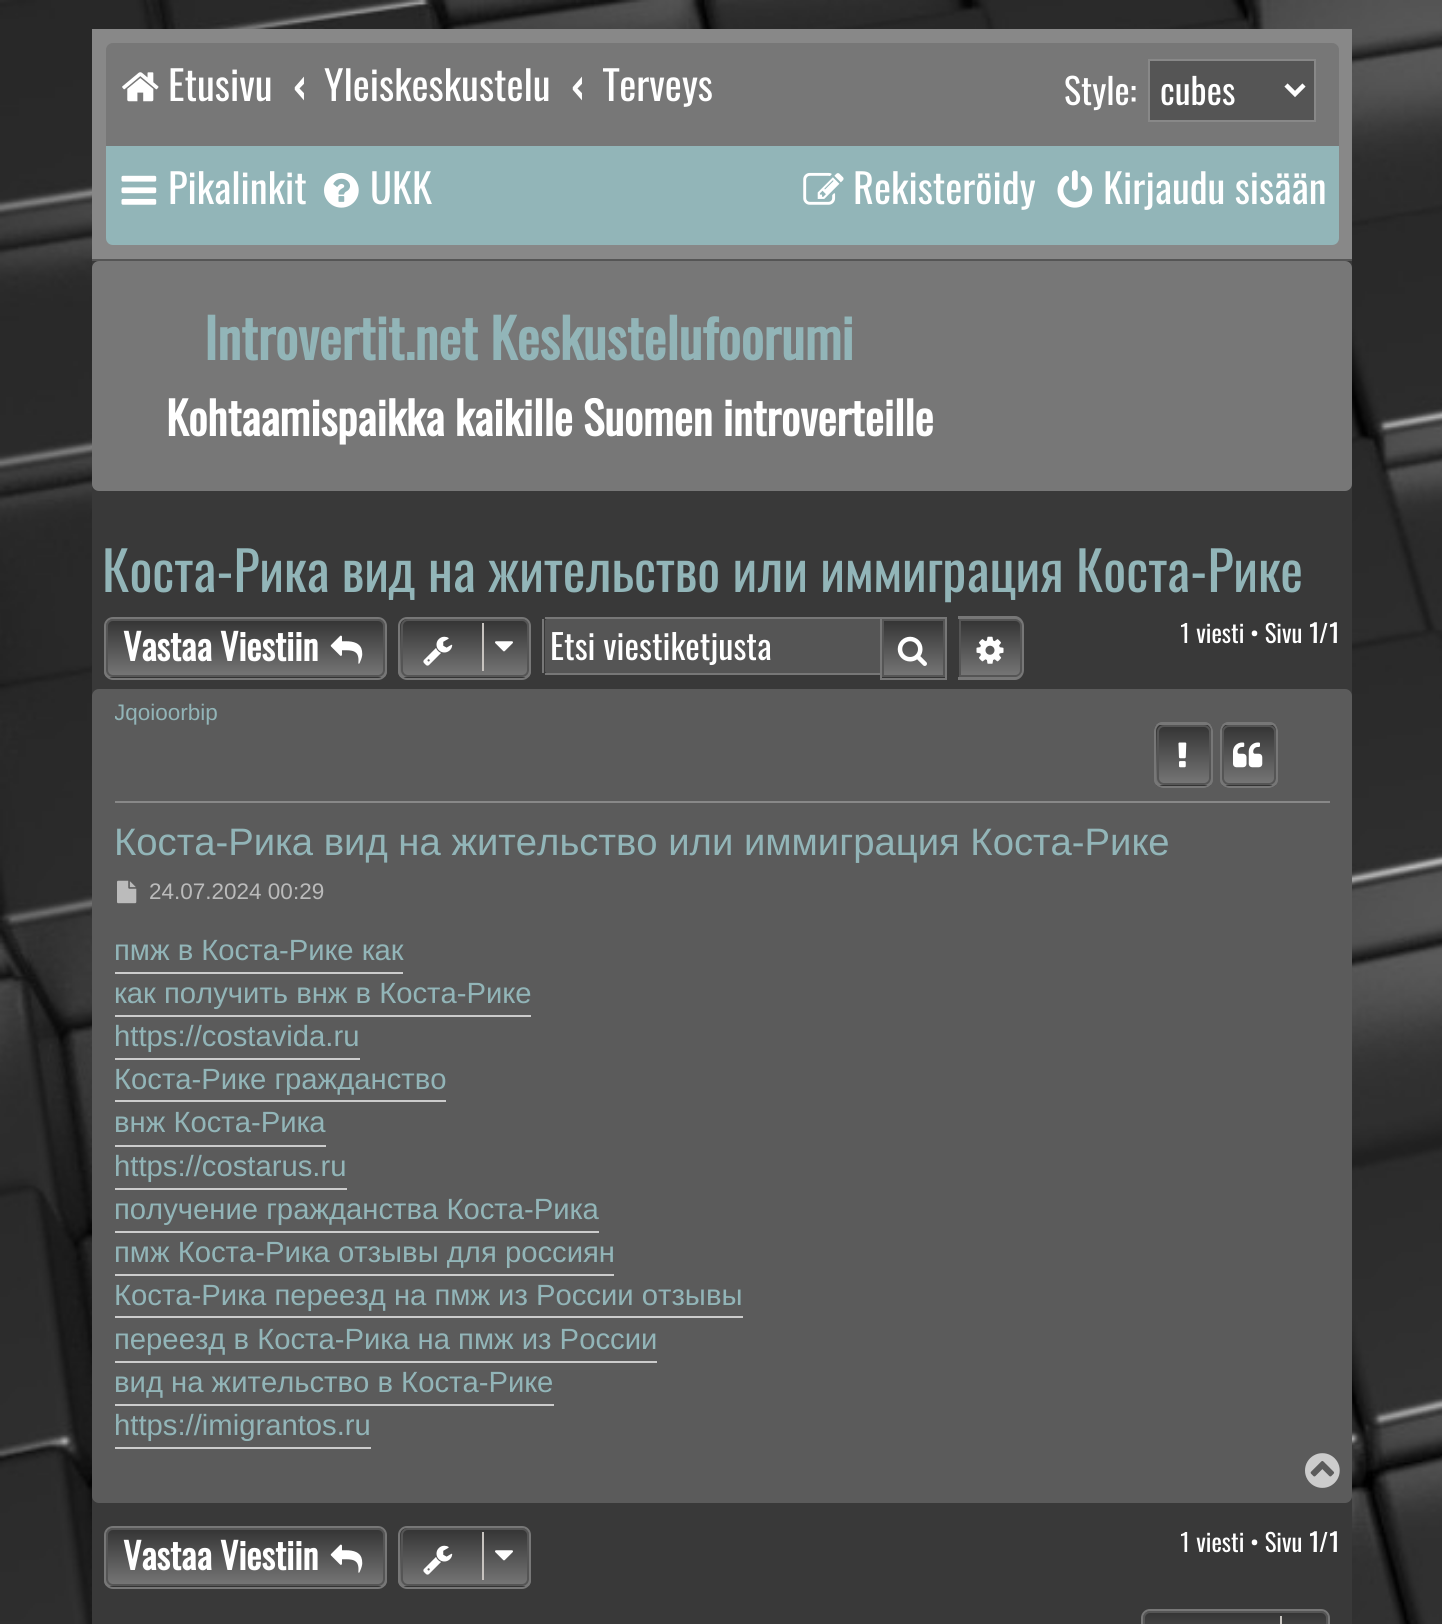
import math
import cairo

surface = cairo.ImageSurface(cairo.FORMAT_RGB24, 1442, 1624)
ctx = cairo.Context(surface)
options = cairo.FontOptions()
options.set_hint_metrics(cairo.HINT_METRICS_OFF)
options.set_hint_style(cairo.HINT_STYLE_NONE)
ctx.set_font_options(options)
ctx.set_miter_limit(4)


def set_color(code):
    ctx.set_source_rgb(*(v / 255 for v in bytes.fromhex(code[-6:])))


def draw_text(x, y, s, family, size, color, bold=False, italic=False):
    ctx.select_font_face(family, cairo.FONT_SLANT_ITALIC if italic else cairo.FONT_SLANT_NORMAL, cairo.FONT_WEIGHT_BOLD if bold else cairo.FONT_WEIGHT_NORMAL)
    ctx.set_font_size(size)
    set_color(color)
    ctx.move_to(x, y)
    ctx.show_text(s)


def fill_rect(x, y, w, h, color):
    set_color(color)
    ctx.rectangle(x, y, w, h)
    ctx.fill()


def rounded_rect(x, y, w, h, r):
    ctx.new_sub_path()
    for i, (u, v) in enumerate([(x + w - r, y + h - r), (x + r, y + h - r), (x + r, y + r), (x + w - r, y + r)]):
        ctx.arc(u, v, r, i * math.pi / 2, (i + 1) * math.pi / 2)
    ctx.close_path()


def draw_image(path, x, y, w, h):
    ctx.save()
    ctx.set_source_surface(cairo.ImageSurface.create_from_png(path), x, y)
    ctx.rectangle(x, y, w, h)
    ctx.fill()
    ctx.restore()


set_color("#ffffff")
ctx.paint()
draw_image("assets/img1.png", 0, 0, 1442, 29)
draw_image("assets/img2.png", 0, 29, 1442, 1595)
fill_rect(92, 29, 1260, 230, "#888888")
set_color("#777777")
ctx.new_path()
ctx.move_to(113, 43)
ctx.line_to(1332, 43)
ctx.curve_to(1336, 43, 1339, 46, 1339, 50)
ctx.line_to(1339, 146)
ctx.line_to(106, 146)
ctx.line_to(106, 50)
ctx.curve_to(106, 46, 109, 43, 113, 43)
ctx.close_path()
ctx.fill()
draw_image("assets/img3.png", 122, 72, 37, 30)
draw_text(168, 101, "Etusivu", "Oswald", 40.5, "#ffffff")
draw_text(293, 101, "‹", "Oswald", 40.5, "#ffffff", bold=True)
draw_text(324, 101, "Yleiskeskustelu", "Oswald", 40.5, "#ffffff")
draw_text(571, 101, "‹", "Oswald", 40.5, "#ffffff", bold=True)
ctx.save()
ctx.rectangle(603, 45, 110, 81)
ctx.clip()
draw_text(603, 101, "Terveys", "Oswald", 40.5, "#ffffff")
ctx.restore()
draw_text(1064, 105, "Style:", "Oswald", 36, "#ffffff")
set_color("#555555")
ctx.rectangle(1149, 60, 166, 61)
ctx.fill_preserve()
set_color("#888888")
ctx.stroke()
ctx.new_path()
ctx.move_to(1286, 85)
ctx.line_to(1295, 94)
ctx.line_to(1304, 85)
set_color("#ffffff")
ctx.set_line_width(4.5)
ctx.stroke()
draw_text(1160, 105, "cubes", "Oswald", 36, "#ffffff")
set_color("#92b5b8")
ctx.new_path()
ctx.move_to(106, 146)
ctx.line_to(1339, 146)
ctx.line_to(1339, 238)
ctx.curve_to(1339, 242, 1336, 245, 1332, 245)
ctx.line_to(113, 245)
ctx.curve_to(109, 245, 106, 242, 106, 238)
ctx.close_path()
ctx.fill()
draw_image("assets/img4.png", 121, 175, 36, 30)
draw_text(168, 204, "Pikalinkit", "Oswald", 40.5, "#ffffff")
draw_image("assets/img5.png", 324, 172, 35, 36)
draw_text(370, 204, "UKK", "Oswald", 40.5, "#ffffff")
draw_image("assets/img6.png", 803, 172, 41, 33)
draw_text(853, 204, "Rekisteröidy", "Oswald", 40.5, "#ffffff")
draw_image("assets/img7.png", 1057, 170, 36, 38)
draw_text(1103, 204, "Kirjaudu sisään", "Oswald", 40.5, "#ffffff")
fill_rect(92, 261, 1260, 1363, "#393939")
fill_rect(92, 259, 1260, 2, "#555555")
set_color("#777777")
rounded_rect(92, 261, 1260, 230, 7)
ctx.fill()
draw_text(204, 360, "Introvertit.net Keskustelufoorumi", "Oswald", 54, "#92b5b8", bold=True)
draw_text(166, 436, "Kohtaamispaikka kaikille Suomen introverteille", "Oswald", 45, "#ffffff", bold=True)
draw_text(102, 592, "Коста-Рика вид на жительство или иммиграция Коста-Рике", "Oswald", 54, "#92b5b8")
ctx.save()
rounded_rect(104, 617, 283, 63, 9)
ctx.clip()
gradient = cairo.LinearGradient(245, 619, 245, 677)
gradient.add_color_stop_rgba(0, 0.2, 0.2, 0.2, 1)
gradient.add_color_stop_rgba(1, 0.467, 0.467, 0.467, 1)
ctx.set_source(gradient)
ctx.rectangle(104, 619, 283, 58)
ctx.fill()
gradient = cairo.LinearGradient(245, 677, 245, 736)
gradient.add_color_stop_rgba(0, 0.2, 0.2, 0.2, 1)
gradient.add_color_stop_rgba(1, 0.467, 0.467, 0.467, 1)
ctx.set_source(gradient)
ctx.rectangle(104, 677, 283, 3)
ctx.fill()
ctx.restore()
rounded_rect(107, 620, 277, 56, 6)
set_color("#555555")
ctx.set_line_width(2)
ctx.stroke()
rounded_rect(105, 618, 281, 61, 8)
set_color("#777777")
ctx.stroke()
draw_text(123, 661, "Vastaa Viestiin", "Oswald", 36, "#ffffff", bold=True)
draw_image("assets/img8.png", 330, 635, 33, 29)
ctx.save()
rounded_rect(398, 617, 133, 63, 9)
ctx.clip()
gradient = cairo.LinearGradient(465, 619, 465, 677)
gradient.add_color_stop_rgba(0, 0.2, 0.2, 0.2, 1)
gradient.add_color_stop_rgba(1, 0.467, 0.467, 0.467, 1)
ctx.set_source(gradient)
ctx.rectangle(398, 619, 133, 58)
ctx.fill()
gradient = cairo.LinearGradient(465, 677, 465, 736)
gradient.add_color_stop_rgba(0, 0.2, 0.2, 0.2, 1)
gradient.add_color_stop_rgba(1, 0.467, 0.467, 0.467, 1)
ctx.set_source(gradient)
ctx.rectangle(398, 677, 133, 3)
ctx.fill()
ctx.restore()
rounded_rect(402, 620, 126, 56, 6)
set_color("#555555")
ctx.stroke()
rounded_rect(399, 618, 131, 61, 8)
set_color("#777777")
ctx.stroke()
draw_image("assets/img9.png", 423, 636, 30, 30)
fill_rect(482, 623, 2, 48, "#c7c3bf")
draw_image("assets/img10.png", 495, 641, 18, 11)
set_color("#555555")
ctx.new_path()
ctx.move_to(547, 619)
ctx.line_to(880, 619)
ctx.line_to(880, 673)
ctx.line_to(547, 673)
ctx.curve_to(546, 673, 545, 672, 545, 671)
ctx.line_to(545, 621)
ctx.curve_to(545, 620, 546, 619, 547, 619)
ctx.close_path()
ctx.fill()
fill_rect(545, 617, 335, 2, "#777777")
fill_rect(545, 673, 335, 2, "#777777")
fill_rect(542, 619, 2, 54, "#777777")
draw_text(550, 660, "Etsi viestiketjusta", "Oswald", 34.5, "#ffffff")
gradient = cairo.LinearGradient(914, 619, 914, 677)
gradient.add_color_stop_rgba(0, 0.2, 0.2, 0.2, 1)
gradient.add_color_stop_rgba(1, 0.467, 0.467, 0.467, 1)
ctx.set_source(gradient)
ctx.rectangle(884, 621, 59, 54)
ctx.fill()
gradient = cairo.LinearGradient(914, 677, 914, 736)
gradient.add_color_stop_rgba(0, 0.2, 0.2, 0.2, 1)
gradient.add_color_stop_rgba(1, 0.467, 0.467, 0.467, 1)
ctx.set_source(gradient)
ctx.rectangle(880, 677, 67, 1)
ctx.fill()
ctx.rectangle(883, 620, 61, 56)
set_color("#555555")
ctx.stroke()
ctx.rectangle(881, 618, 65, 61)
set_color("#777777")
ctx.stroke()
draw_image("assets/img11.png", 897, 636, 30, 30)
gradient = cairo.LinearGradient(990, 619, 990, 677)
gradient.add_color_stop_rgba(0, 0.2, 0.2, 0.2, 1)
gradient.add_color_stop_rgba(1, 0.467, 0.467, 0.467, 1)
ctx.set_source(gradient)
ctx.new_path()
ctx.move_to(960, 620)
ctx.line_to(1015, 620)
ctx.curve_to(1018.5, 620, 1021, 622.5, 1021, 626)
ctx.line_to(1021, 670)
ctx.curve_to(1021, 673.5, 1018.5, 676, 1015, 676)
ctx.line_to(960, 676)
ctx.close_path()
ctx.fill_preserve()
set_color("#555555")
ctx.stroke()
set_color("#777777")
ctx.set_fill_rule(cairo.FILL_RULE_EVEN_ODD)
ctx.new_path()
ctx.move_to(958, 616)
ctx.line_to(1015, 616)
ctx.curve_to(1020, 616, 1024, 621, 1024, 626)
ctx.line_to(1024, 670)
ctx.curve_to(1024, 675, 1020, 680, 1015, 680)
ctx.line_to(958, 680)
ctx.close_path()
ctx.move_to(958, 619)
ctx.line_to(1015, 619)
ctx.curve_to(1018, 619, 1022, 622, 1022, 626)
ctx.line_to(1022, 670)
ctx.curve_to(1022, 674, 1018, 677, 1015, 677)
ctx.line_to(958, 677)
ctx.close_path()
ctx.fill()
draw_image("assets/img12.png", 976, 636, 28, 28)
draw_text(1179, 643, "1 viesti • Sivu", "Oswald", 24.75, "#ffffff")
draw_text(1308, 643, "1", "Oswald", 24.75, "#ffffff", bold=True)
draw_text(1319, 643, "/", "Oswald", 24.75, "#ffffff")
draw_text(1328, 643, "1", "Oswald", 24.75, "#ffffff", bold=True)
set_color("#5b5b5b")
rounded_rect(92, 689, 1260, 814, 7)
ctx.fill()
fill_rect(115, 801, 1215, 2, "#888888")
ctx.save()
ctx.set_fill_rule(cairo.FILL_RULE_WINDING)
ctx.rectangle(115, 700, 1215, 101)
ctx.clip()
draw_text(114, 720, "Jqoioorbip", "Liberation Sans", 22.5, "#92b5b8")
ctx.restore()
ctx.save()
ctx.set_fill_rule(cairo.FILL_RULE_WINDING)
rounded_rect(1154, 722, 59, 66, 9)
ctx.clip()
gradient = cairo.LinearGradient(1184, 664, 1184, 725)
gradient.add_color_stop_rgba(0, 0.2, 0.2, 0.2, 1)
gradient.add_color_stop_rgba(1, 0.467, 0.467, 0.467, 1)
ctx.set_source(gradient)
ctx.rectangle(1154, 722, 59, 3)
ctx.fill()
gradient = cairo.LinearGradient(1184, 725, 1184, 785)
gradient.add_color_stop_rgba(0, 0.2, 0.2, 0.2, 1)
gradient.add_color_stop_rgba(1, 0.467, 0.467, 0.467, 1)
ctx.set_source(gradient)
ctx.rectangle(1154, 725, 59, 60)
ctx.fill()
gradient = cairo.LinearGradient(1184, 785, 1184, 846)
gradient.add_color_stop_rgba(0, 0.2, 0.2, 0.2, 1)
gradient.add_color_stop_rgba(1, 0.467, 0.467, 0.467, 1)
ctx.set_source(gradient)
ctx.rectangle(1154, 785, 59, 3)
ctx.fill()
ctx.restore()
rounded_rect(1158, 726, 52, 58, 6)
set_color("#555555")
ctx.stroke()
rounded_rect(1155, 723, 57, 64, 8)
set_color("#777777")
ctx.stroke()
draw_image("assets/img13.png", 1178, 742, 9, 26)
ctx.save()
ctx.set_fill_rule(cairo.FILL_RULE_WINDING)
rounded_rect(1220, 722, 58, 66, 9)
ctx.clip()
gradient = cairo.LinearGradient(1249, 664, 1249, 725)
gradient.add_color_stop_rgba(0, 0.2, 0.2, 0.2, 1)
gradient.add_color_stop_rgba(1, 0.467, 0.467, 0.467, 1)
ctx.set_source(gradient)
ctx.rectangle(1220, 722, 58, 3)
ctx.fill()
gradient = cairo.LinearGradient(1249, 725, 1249, 785)
gradient.add_color_stop_rgba(0, 0.2, 0.2, 0.2, 1)
gradient.add_color_stop_rgba(1, 0.467, 0.467, 0.467, 1)
ctx.set_source(gradient)
ctx.rectangle(1220, 725, 58, 60)
ctx.fill()
gradient = cairo.LinearGradient(1249, 785, 1249, 846)
gradient.add_color_stop_rgba(0, 0.2, 0.2, 0.2, 1)
gradient.add_color_stop_rgba(1, 0.467, 0.467, 0.467, 1)
ctx.set_source(gradient)
ctx.rectangle(1220, 785, 58, 3)
ctx.fill()
ctx.restore()
rounded_rect(1223, 726, 52, 58, 6)
set_color("#555555")
ctx.stroke()
rounded_rect(1221, 723, 56, 64, 8)
set_color("#777777")
ctx.stroke()
draw_image("assets/img14.png", 1233, 742, 30, 26)
draw_text(114, 855, "Коста-Рика вид на жительство или иммиграция Коста-Рике", "Liberation Sans", 38.25, "#92b5b8")
draw_image("assets/img15.png", 117, 880, 20, 24)
draw_text(149, 899, "24.07.2024 00:29", "Liberation Sans", 22.5, "#bbbbbb")
fill_rect(115, 972, 288, 2, "#cccccc")
draw_text(114, 960, "пмж в Коста-Рике как", "Liberation Sans", 29.25, "#92b5b8")
fill_rect(115, 1015, 416, 2, "#cccccc")
draw_text(114, 1003, "как получить внж в Коста-Рике", "Liberation Sans", 29.25, "#92b5b8")
fill_rect(115, 1058, 245, 2, "#cccccc")
draw_text(114, 1046, "https://costavida.ru", "Liberation Sans", 29.25, "#92b5b8")
fill_rect(115, 1100, 331, 2, "#cccccc")
draw_text(114, 1089, "Коста-Рике гражданство", "Liberation Sans", 29.25, "#92b5b8")
fill_rect(115, 1145, 211, 2, "#cccccc")
draw_text(114, 1132, "внж Коста-Рика", "Liberation Sans", 29.25, "#92b5b8")
fill_rect(115, 1188, 232, 2, "#cccccc")
draw_text(114, 1176, "https://costarus.ru", "Liberation Sans", 29.25, "#92b5b8")
fill_rect(115, 1231, 484, 2, "#cccccc")
draw_text(114, 1219, "получение гражданства Коста-Рика", "Liberation Sans", 29.25, "#92b5b8")
fill_rect(115, 1274, 499, 2, "#cccccc")
draw_text(114, 1262, "пмж Коста-Рика отзывы для россиян", "Liberation Sans", 29.25, "#92b5b8")
fill_rect(115, 1316, 628, 2, "#cccccc")
draw_text(114, 1305, "Коста-Рика переезд на пмж из России отзывы", "Liberation Sans", 29.25, "#92b5b8")
fill_rect(115, 1361, 542, 2, "#cccccc")
draw_text(114, 1349, "переезд в Коста-Рика на пмж из России", "Liberation Sans", 29.25, "#92b5b8")
fill_rect(115, 1404, 439, 2, "#cccccc")
draw_text(114, 1392, "вид на жительство в Коста-Рике", "Liberation Sans", 29.25, "#92b5b8")
fill_rect(115, 1447, 256, 2, "#cccccc")
draw_text(114, 1435, "https://imigrantos.ru", "Liberation Sans", 29.25, "#92b5b8")
draw_image("assets/img16.png", 1305, 1453, 35, 35)
ctx.save()
ctx.set_fill_rule(cairo.FILL_RULE_WINDING)
rounded_rect(104, 1526, 283, 63, 9)
ctx.clip()
gradient = cairo.LinearGradient(245, 1528, 245, 1586)
gradient.add_color_stop_rgba(0, 0.2, 0.2, 0.2, 1)
gradient.add_color_stop_rgba(1, 0.467, 0.467, 0.467, 1)
ctx.set_source(gradient)
ctx.rectangle(104, 1528, 283, 58)
ctx.fill()
gradient = cairo.LinearGradient(245, 1586, 245, 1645)
gradient.add_color_stop_rgba(0, 0.2, 0.2, 0.2, 1)
gradient.add_color_stop_rgba(1, 0.467, 0.467, 0.467, 1)
ctx.set_source(gradient)
ctx.rectangle(104, 1586, 283, 3)
ctx.fill()
ctx.restore()
rounded_rect(107, 1529, 277, 56, 6)
set_color("#555555")
ctx.stroke()
rounded_rect(105, 1527, 281, 61, 8)
set_color("#777777")
ctx.stroke()
draw_text(123, 1570, "Vastaa Viestiin", "Oswald", 36, "#ffffff", bold=True)
draw_image("assets/img8.png", 330, 1544, 33, 29)
ctx.save()
ctx.set_fill_rule(cairo.FILL_RULE_WINDING)
rounded_rect(398, 1526, 133, 63, 9)
ctx.clip()
gradient = cairo.LinearGradient(465, 1528, 465, 1586)
gradient.add_color_stop_rgba(0, 0.2, 0.2, 0.2, 1)
gradient.add_color_stop_rgba(1, 0.467, 0.467, 0.467, 1)
ctx.set_source(gradient)
ctx.rectangle(398, 1528, 133, 58)
ctx.fill()
gradient = cairo.LinearGradient(465, 1586, 465, 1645)
gradient.add_color_stop_rgba(0, 0.2, 0.2, 0.2, 1)
gradient.add_color_stop_rgba(1, 0.467, 0.467, 0.467, 1)
ctx.set_source(gradient)
ctx.rectangle(398, 1586, 133, 3)
ctx.fill()
ctx.restore()
rounded_rect(402, 1529, 126, 56, 6)
set_color("#555555")
ctx.stroke()
rounded_rect(399, 1527, 131, 61, 8)
set_color("#777777")
ctx.stroke()
draw_image("assets/img9.png", 423, 1545, 30, 30)
fill_rect(482, 1532, 2, 48, "#c7c3bf")
draw_image("assets/img10.png", 495, 1550, 18, 11)
draw_text(1179, 1552, "1 viesti • Sivu", "Oswald", 24.75, "#ffffff")
draw_text(1308, 1552, "1", "Oswald", 24.75, "#ffffff", bold=True)
draw_text(1319, 1552, "/", "Oswald", 24.75, "#ffffff")
draw_text(1328, 1552, "1", "Oswald", 24.75, "#ffffff", bold=True)
ctx.save()
ctx.set_fill_rule(cairo.FILL_RULE_WINDING)
rounded_rect(1141, 1609, 189, 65, 9)
ctx.clip()
gradient = cairo.LinearGradient(1235, 1611, 1235, 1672)
gradient.add_color_stop_rgba(0, 0.2, 0.2, 0.2, 1)
gradient.add_color_stop_rgba(1, 0.467, 0.467, 0.467, 1)
ctx.set_source(gradient)
ctx.rectangle(1141, 1611, 189, 13)
ctx.fill()
ctx.restore()
rounded_rect(1144, 1612, 183, 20, 6)
set_color("#555555")
ctx.stroke()
rounded_rect(1142, 1610, 187, 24, 8)
set_color("#777777")
ctx.stroke()
fill_rect(1280, 1616, 2, 8, "#c7c3bf")
surface.write_to_png("output.png")
